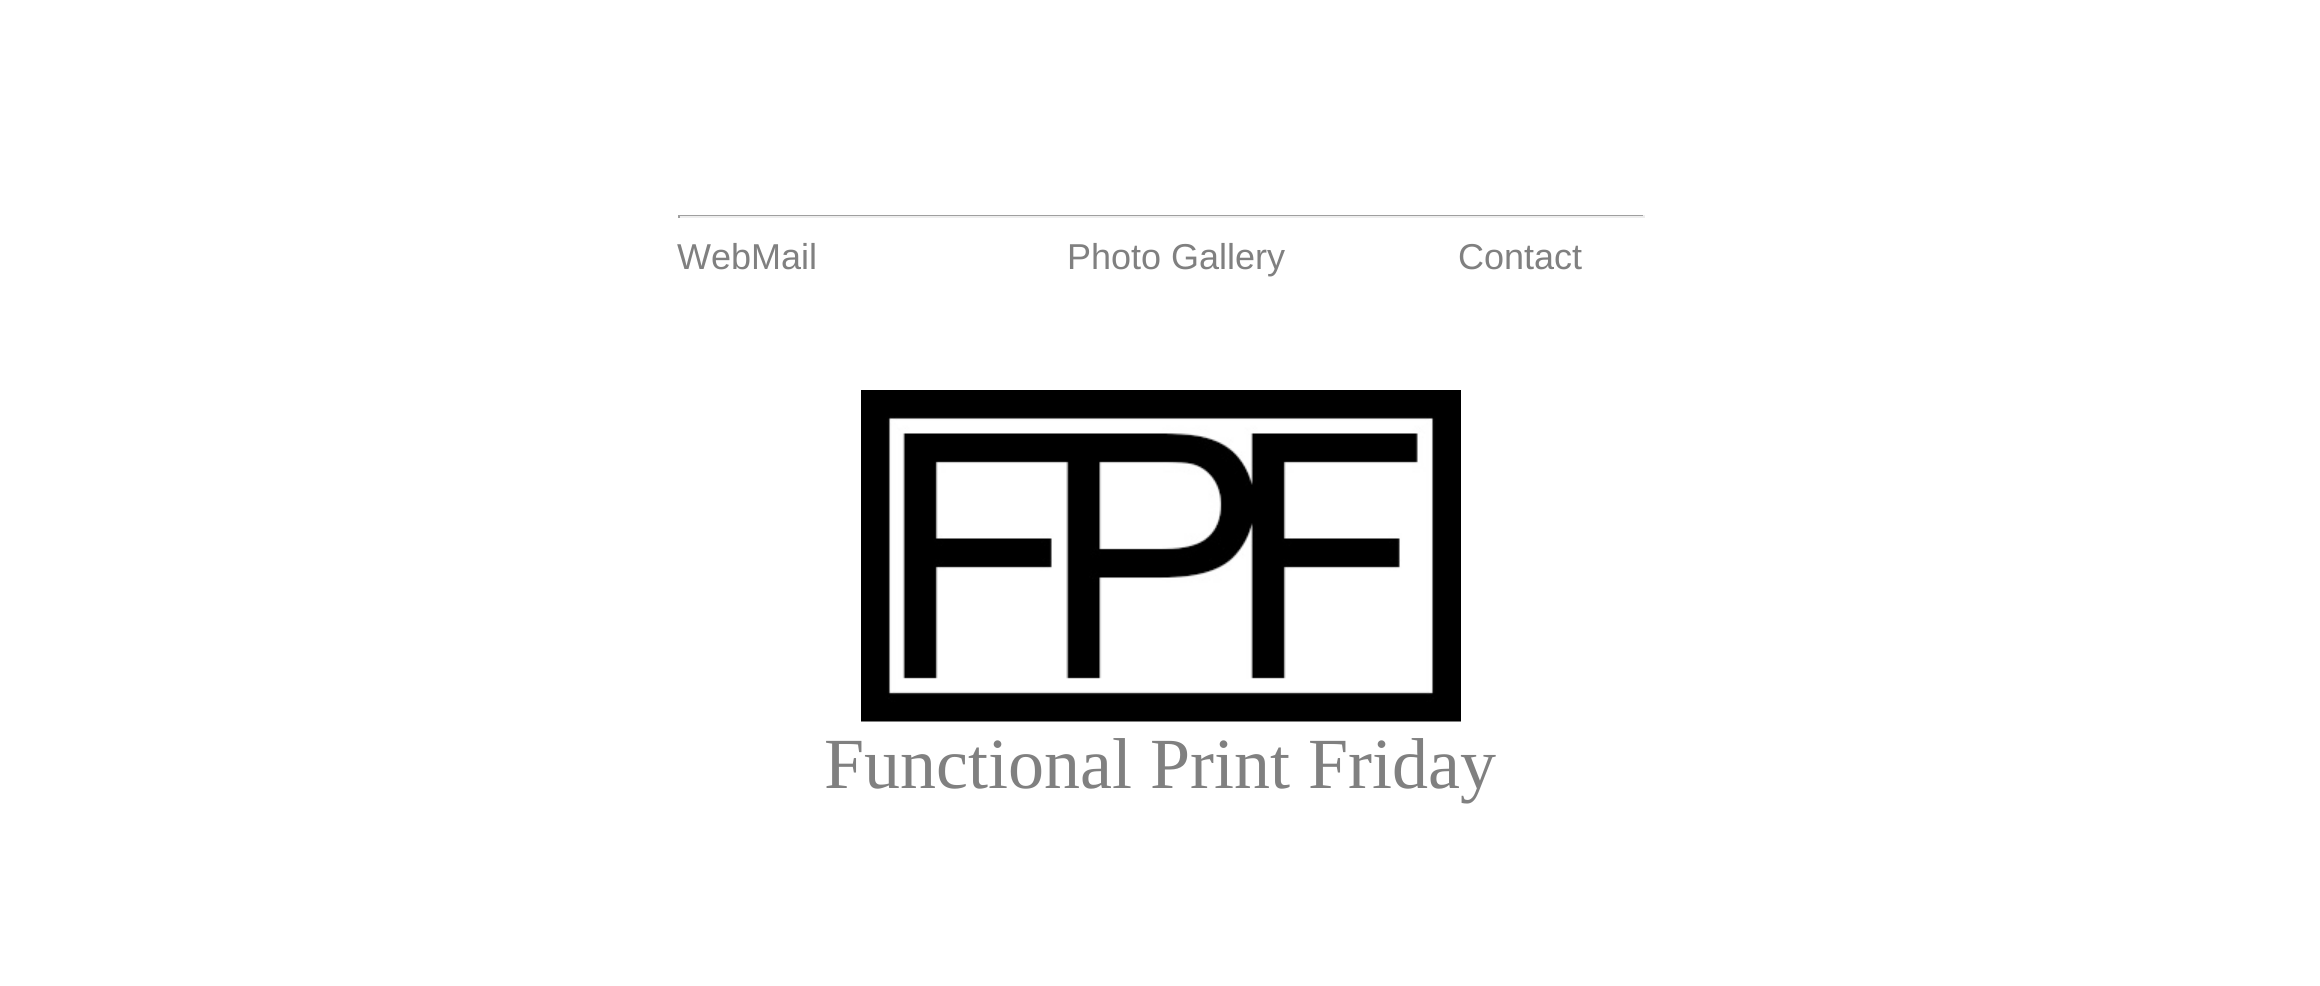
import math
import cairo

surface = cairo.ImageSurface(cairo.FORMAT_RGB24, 2320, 986)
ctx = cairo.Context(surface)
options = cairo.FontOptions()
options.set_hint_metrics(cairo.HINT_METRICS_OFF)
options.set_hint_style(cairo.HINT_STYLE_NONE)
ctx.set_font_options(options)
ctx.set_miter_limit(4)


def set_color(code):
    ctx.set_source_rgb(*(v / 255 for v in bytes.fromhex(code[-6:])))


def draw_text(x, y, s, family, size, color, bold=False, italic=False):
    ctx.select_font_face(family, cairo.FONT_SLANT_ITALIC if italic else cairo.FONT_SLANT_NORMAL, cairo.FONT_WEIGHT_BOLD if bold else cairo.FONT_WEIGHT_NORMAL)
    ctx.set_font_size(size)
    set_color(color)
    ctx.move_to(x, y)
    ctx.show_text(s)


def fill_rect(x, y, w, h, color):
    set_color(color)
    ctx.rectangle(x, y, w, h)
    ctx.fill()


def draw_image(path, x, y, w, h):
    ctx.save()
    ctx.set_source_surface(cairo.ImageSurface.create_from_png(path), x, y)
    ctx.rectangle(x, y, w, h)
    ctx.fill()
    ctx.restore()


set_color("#ffffff")
ctx.paint()
fill_rect(678, 215, 966, 1, "#9f9f9f")
fill_rect(1643, 215, 2, 3, "#eeeeee")
fill_rect(678, 216, 966, 2, "#eeeeee")
fill_rect(678, 215, 2, 3, "#9f9f9f")
draw_text(677, 269, "WebMail", "Liberation Sans", 36, "#808080")
draw_text(1067, 269, "Photo Gallery", "Liberation Sans", 36, "#808080")
draw_text(1458, 269, "Contact", "Liberation Sans", 36, "#808080")
draw_image("assets/img1.png", 861, 390, 600, 332)
draw_text(824, 788, "Functional Print Friday", "Liberation Serif", 72, "#808080")
surface.write_to_png("output.png")
